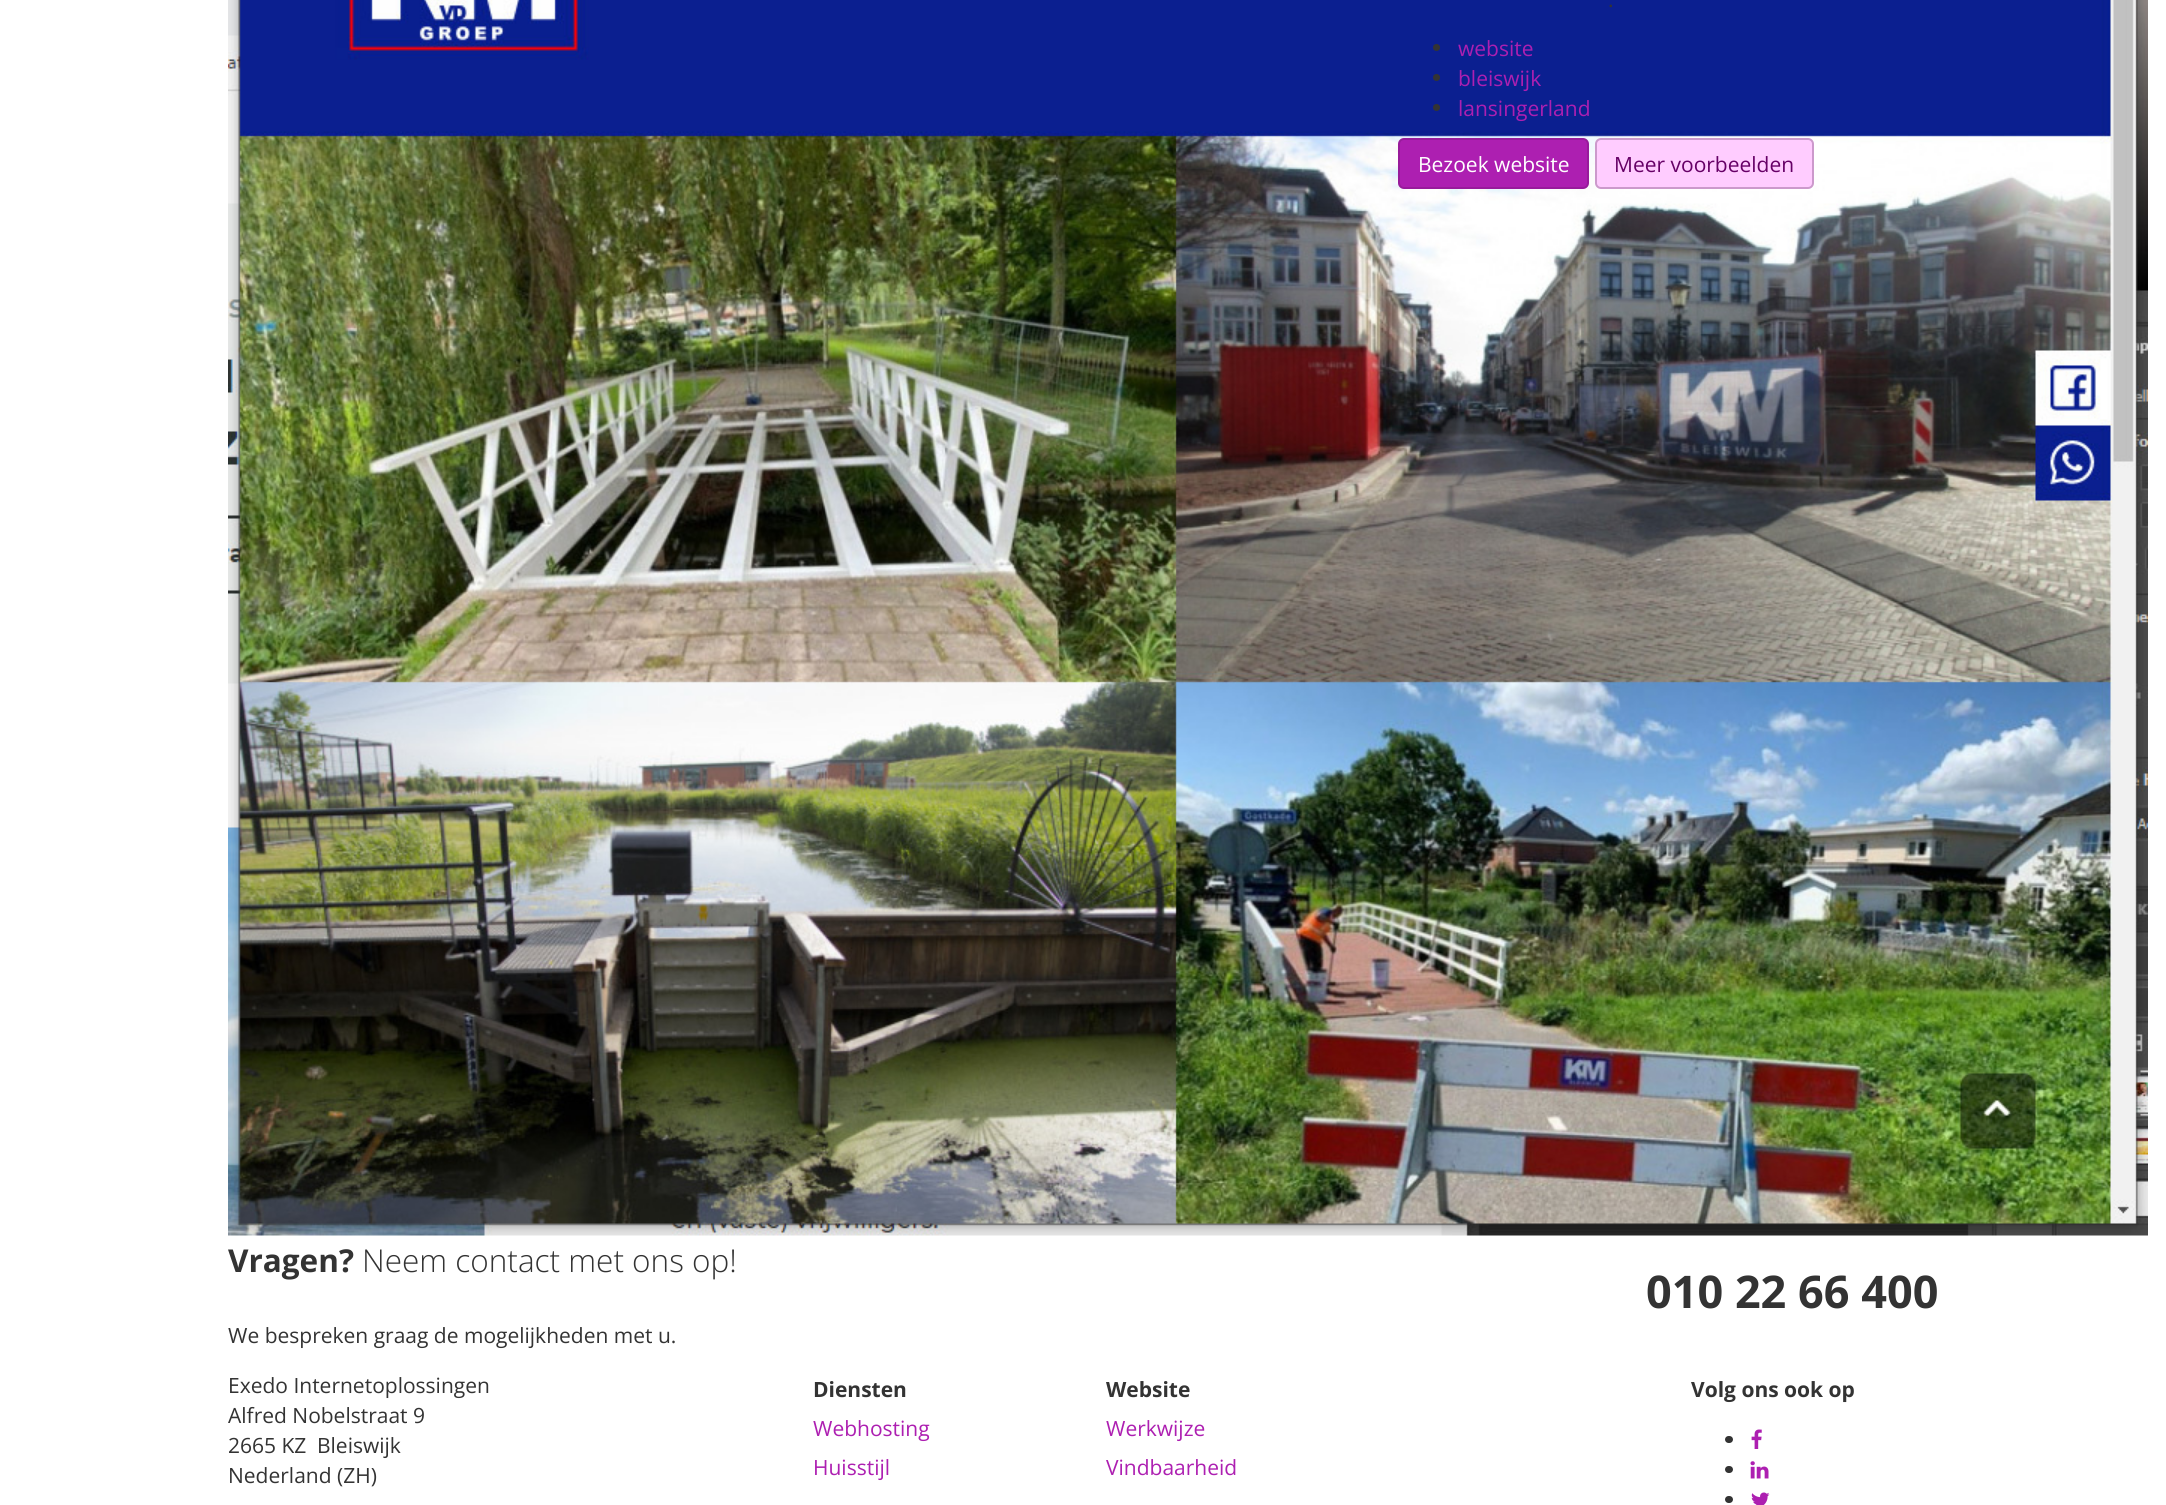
import math
import cairo

surface = cairo.ImageSurface(cairo.FORMAT_RGB24, 2166, 1505)
ctx = cairo.Context(surface)
options = cairo.FontOptions()
options.set_hint_metrics(cairo.HINT_METRICS_OFF)
options.set_hint_style(cairo.HINT_STYLE_NONE)
ctx.set_font_options(options)
ctx.set_miter_limit(4)


def set_color(code):
    ctx.set_source_rgb(*(v / 255 for v in bytes.fromhex(code[-6:])))


def draw_text(x, y, s, family, size, color, bold=False, italic=False):
    ctx.select_font_face(family, cairo.FONT_SLANT_ITALIC if italic else cairo.FONT_SLANT_NORMAL, cairo.FONT_WEIGHT_BOLD if bold else cairo.FONT_WEIGHT_NORMAL)
    ctx.set_font_size(size)
    set_color(color)
    ctx.move_to(x, y)
    ctx.show_text(s)


def rounded_rect(x, y, w, h, r):
    ctx.new_sub_path()
    for i, (u, v) in enumerate([(x + w - r, y + h - r), (x + r, y + h - r), (x + r, y + r), (x + w - r, y + r)]):
        ctx.arc(u, v, r, i * math.pi / 2, (i + 1) * math.pi / 2)
    ctx.close_path()


def draw_image(path, x, y, w, h):
    ctx.save()
    ctx.set_source_surface(cairo.ImageSurface.create_from_png(path), x, y)
    ctx.rectangle(x, y, w, h)
    ctx.fill()
    ctx.restore()


set_color("#ffffff")
ctx.paint()
draw_image("assets/img1.png", 228, 0, 1920, 1236)
draw_text(1608, 7, ".", "Open Sans", 21, "#333333")
ctx.new_path()
ctx.arc(1436.5, 47.5, 3.5, 0, 2 * math.pi)
ctx.fill()
draw_text(1458, 56, "website", "Open Sans", 21, "#ad1fb1")
set_color("#333333")
ctx.new_path()
ctx.arc(1436.5, 77.5, 3.5, 0, 2 * math.pi)
ctx.fill()
draw_text(1458, 86, "bleiswijk", "Open Sans", 21, "#ad1fb1")
set_color("#333333")
ctx.new_path()
ctx.arc(1436.5, 107.5, 3.5, 0, 2 * math.pi)
ctx.fill()
draw_text(1458, 116, "lansingerland", "Open Sans", 21, "#ad1fb1")
rounded_rect(1399, 139, 189, 49, 5)
ctx.fill_preserve()
set_color("#981b9b")
ctx.stroke()
draw_text(1418, 172, "Bezoek website", "Open Sans", 21, "#ffffff")
set_color("#ffccff")
rounded_rect(1596, 139, 217, 49, 5)
ctx.fill_preserve()
set_color("#cc99cc")
ctx.stroke()
draw_text(1614, 172, "Meer voorbeelden", "Open Sans", 21, "#660066")
draw_text(228, 1272, "Vragen?", "Open Sans", 31.5, "#333333", bold=True)
draw_text(362, 1272, "Neem contact met ons op!", "Open Sans Light", 31.5, "#333333")
draw_text(228, 1343, "We bespreken graag de mogelijkheden met u.", "Open Sans", 21, "#333333")
draw_text(1646, 1308, "010 22 66 400", "Open Sans", 45, "#333333", bold=True)
draw_text(228, 1393, "Exedo Internetoplossingen", "Open Sans", 21, "#333333")
draw_text(228, 1423, "Alfred Nobelstraat 9", "Open Sans", 21, "#333333")
draw_text(228, 1453, "2665 KZ", "Open Sans", 21, "#333333")
draw_text(317, 1453, "Bleiswijk", "Open Sans", 21, "#333333")
draw_text(228, 1483, "Nederland (ZH)", "Open Sans", 21, "#333333")
draw_text(813, 1397, "Diensten", "Open Sans", 21, "#333333", bold=True)
draw_text(813, 1436, "Webhosting", "Open Sans", 21, "#ad1fb1")
draw_text(813, 1475, "Huisstijl", "Open Sans", 21, "#ad1fb1")
draw_text(1106, 1397, "Website", "Open Sans", 21, "#333333", bold=True)
draw_text(1106, 1436, "Werkwijze", "Open Sans", 21, "#ad1fb1")
draw_text(1106, 1475, "Vindbaarheid", "Open Sans", 21, "#ad1fb1")
draw_text(1691, 1397, "Volg ons ook op", "Open Sans", 21, "#333333", bold=True)
rounded_rect(1725, 1436, 8, 7, 3.5)
ctx.fill()
draw_image("assets/img2.png", 1751, 1429, 11, 20)
rounded_rect(1725, 1466, 8, 7, 3.5)
ctx.fill()
draw_image("assets/img3.png", 1750, 1461, 19, 18)
rounded_rect(1725, 1496, 8, 7, 3.5)
ctx.fill()
draw_image("assets/img4.png", 1751, 1492, 19, 13)
surface.write_to_png("output.png")
